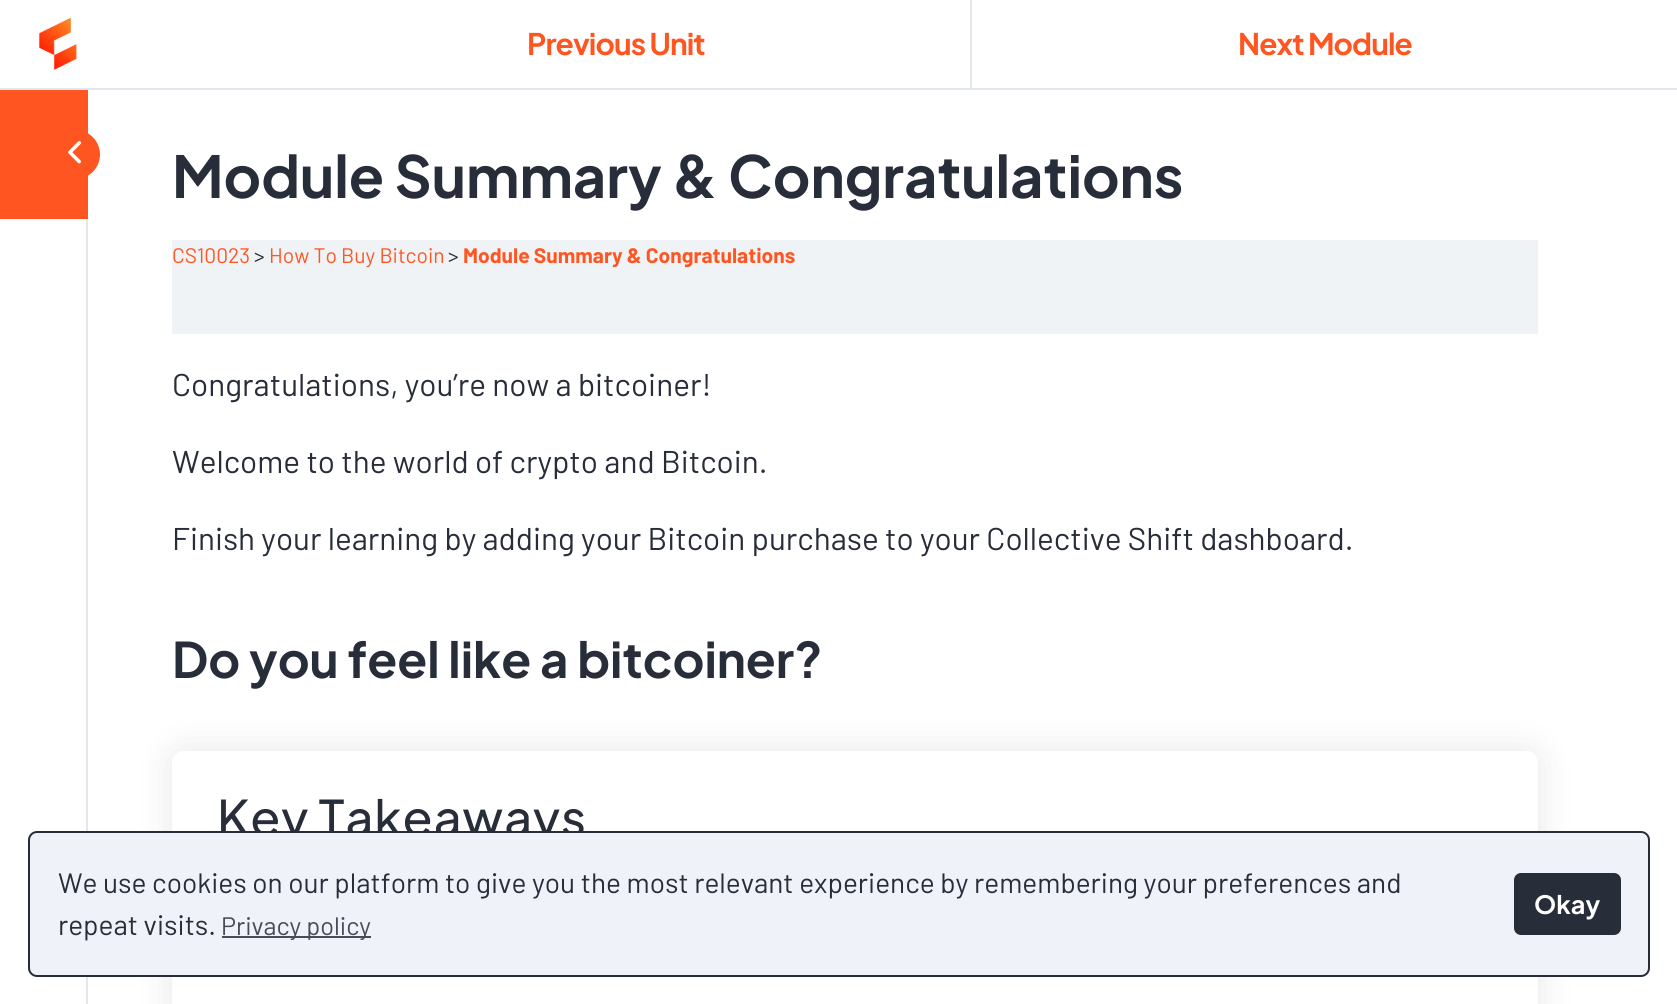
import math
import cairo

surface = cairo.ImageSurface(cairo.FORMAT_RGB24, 1677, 1004)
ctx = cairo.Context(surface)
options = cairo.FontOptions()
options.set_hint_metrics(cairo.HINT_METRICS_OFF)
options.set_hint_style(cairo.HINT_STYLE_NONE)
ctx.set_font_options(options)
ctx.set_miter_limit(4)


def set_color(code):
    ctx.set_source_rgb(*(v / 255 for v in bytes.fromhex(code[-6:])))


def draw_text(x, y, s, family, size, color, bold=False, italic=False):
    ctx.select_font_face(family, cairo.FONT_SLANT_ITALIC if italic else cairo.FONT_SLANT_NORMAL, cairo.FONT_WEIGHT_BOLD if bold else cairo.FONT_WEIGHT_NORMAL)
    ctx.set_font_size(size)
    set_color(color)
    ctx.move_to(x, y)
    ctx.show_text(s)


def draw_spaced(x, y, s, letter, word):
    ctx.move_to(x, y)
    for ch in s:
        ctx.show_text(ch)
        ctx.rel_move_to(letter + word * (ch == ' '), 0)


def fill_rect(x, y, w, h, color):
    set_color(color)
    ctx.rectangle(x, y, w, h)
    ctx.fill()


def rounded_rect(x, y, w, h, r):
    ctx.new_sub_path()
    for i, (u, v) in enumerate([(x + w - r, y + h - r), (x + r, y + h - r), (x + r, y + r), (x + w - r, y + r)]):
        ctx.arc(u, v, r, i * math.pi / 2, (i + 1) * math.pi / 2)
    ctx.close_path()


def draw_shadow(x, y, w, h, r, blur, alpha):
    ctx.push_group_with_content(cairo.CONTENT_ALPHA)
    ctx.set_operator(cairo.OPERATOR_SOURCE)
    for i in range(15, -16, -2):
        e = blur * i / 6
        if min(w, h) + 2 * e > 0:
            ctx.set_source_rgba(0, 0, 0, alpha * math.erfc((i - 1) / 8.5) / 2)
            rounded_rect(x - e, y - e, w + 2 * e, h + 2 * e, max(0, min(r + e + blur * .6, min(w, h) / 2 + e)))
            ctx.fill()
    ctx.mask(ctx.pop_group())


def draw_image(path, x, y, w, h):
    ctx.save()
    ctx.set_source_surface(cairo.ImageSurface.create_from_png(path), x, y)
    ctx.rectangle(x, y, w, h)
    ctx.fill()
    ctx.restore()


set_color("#ffffff")
ctx.paint()
fill_rect(86, 219, 2, 785, "#e2e7ed")
fill_rect(0, 90, 88, 129, "#ff5621")
rounded_rect(49, 130, 51, 49, 24.5)
ctx.fill()
draw_image("assets/img1.png", 68, 141, 13, 23)
fill_rect(0, 88, 1677, 2, "#e2e7ed")
draw_image("assets/img2.png", 39, 17, 38, 53)
fill_rect(970, 0, 2, 88, "#e2e7ed")
ctx.select_font_face("Plus Jakarta Sans", cairo.FONT_SLANT_NORMAL, cairo.FONT_WEIGHT_BOLD)
ctx.set_font_size(29.75)
set_color("#ff5621")
draw_spaced(527, 55, "Previous Unit", -0.9, 0)
draw_spaced(1238, 55, "Next Module", -0.9, 0)
draw_text(172, 198, "Module Summary & Congratulations", "Plus Jakarta Sans", 57.75, "#282d3a", bold=True)
fill_rect(172, 240, 1366, 94, "#f0f3f6")
draw_text(172, 263, "CS10023", "Barlow", 21, "#ff5621")
draw_text(254, 263, ">", "Barlow", 21, "#282d3a")
draw_text(269, 263, "How To Buy Bitcoin", "Barlow", 21, "#ff5621")
draw_text(448, 263, ">", "Barlow", 21, "#282d3a")
draw_text(463, 263, "Module Summary & Congratulations", "Barlow", 21, "#ff5621", bold=True)
draw_text(172, 396, "Congratulations, you’re now a bitcoiner!", "Barlow", 31.5, "#282d3a")
draw_text(172, 473, "Welcome to the world of crypto and Bitcoin.", "Barlow", 31.5, "#282d3a")
draw_text(172, 550, "Finish your learning by adding your Bitcoin purchase to your Collective Shift dashboard.", "Barlow", 31.5, "#282d3a")
draw_text(172, 678, "Do you feel like a bitcoiner?", "Plus Jakarta Sans", 49, "#282d3a", bold=True)
ctx.save()
ctx.set_fill_rule(cairo.FILL_RULE_EVEN_ODD)
ctx.new_path()
ctx.move_to(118, 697)
ctx.line_to(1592, 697)
ctx.line_to(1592, 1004)
ctx.line_to(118, 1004)
ctx.close_path()
ctx.move_to(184, 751)
ctx.line_to(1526, 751)
ctx.curve_to(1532.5, 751, 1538, 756.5, 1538, 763)
ctx.line_to(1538, 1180)
ctx.curve_to(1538, 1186.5, 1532.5, 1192, 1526, 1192)
ctx.line_to(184, 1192)
ctx.curve_to(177.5, 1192, 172, 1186.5, 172, 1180)
ctx.line_to(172, 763)
ctx.curve_to(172, 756.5, 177.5, 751, 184, 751)
ctx.close_path()
ctx.clip()
set_color("#000000")
draw_shadow(172, 751, 1366, 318, 12, 17.5, 0.1)
ctx.restore()
ctx.select_font_face("Plus Jakarta Sans Medium")
draw_spaced(217, 836, "Key Takeaways", 0.9, 0)
set_color("#f0f2fa")
rounded_rect(29, 832, 1620, 144, 8)
ctx.fill_preserve()
set_color("#282d3a")
ctx.stroke()
draw_text(58, 893, "We use cookies on our platform to give you the most relevant experience by remembering your preferences and", "Barlow", 28, "#282d3a")
draw_text(58, 935, "repeat visits.", "Barlow", 28, "#282d3a")
fill_rect(222, 936, 149, 2, "#464b57")
draw_text(221, 935, "Privacy policy", "Barlow", 25.25, "#464b57")
set_color("#282d3a")
rounded_rect(1514, 873, 107, 62, 7)
ctx.fill()
draw_text(1534, 914, "Okay", "Plus Jakarta Sans", 25.25, "#ffffff", bold=True)
surface.write_to_png("output.png")
